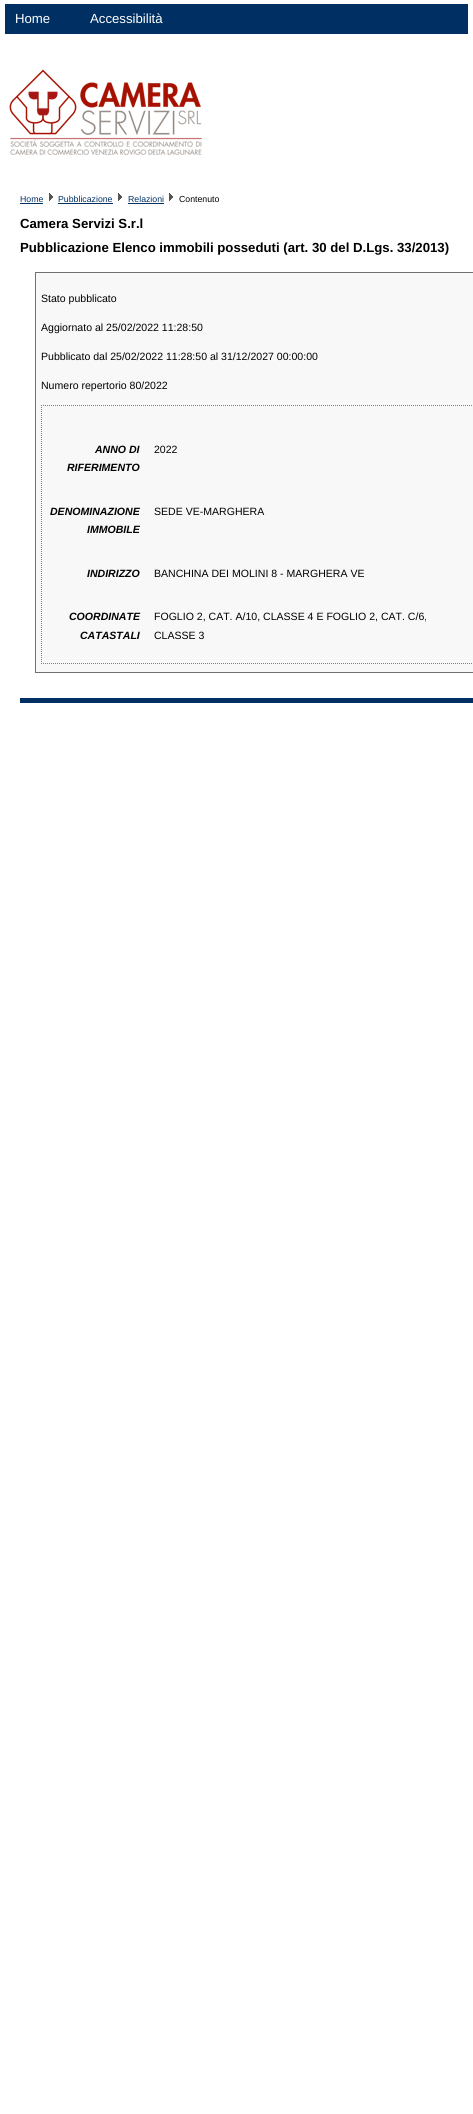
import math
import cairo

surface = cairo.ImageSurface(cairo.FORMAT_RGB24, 473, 2114)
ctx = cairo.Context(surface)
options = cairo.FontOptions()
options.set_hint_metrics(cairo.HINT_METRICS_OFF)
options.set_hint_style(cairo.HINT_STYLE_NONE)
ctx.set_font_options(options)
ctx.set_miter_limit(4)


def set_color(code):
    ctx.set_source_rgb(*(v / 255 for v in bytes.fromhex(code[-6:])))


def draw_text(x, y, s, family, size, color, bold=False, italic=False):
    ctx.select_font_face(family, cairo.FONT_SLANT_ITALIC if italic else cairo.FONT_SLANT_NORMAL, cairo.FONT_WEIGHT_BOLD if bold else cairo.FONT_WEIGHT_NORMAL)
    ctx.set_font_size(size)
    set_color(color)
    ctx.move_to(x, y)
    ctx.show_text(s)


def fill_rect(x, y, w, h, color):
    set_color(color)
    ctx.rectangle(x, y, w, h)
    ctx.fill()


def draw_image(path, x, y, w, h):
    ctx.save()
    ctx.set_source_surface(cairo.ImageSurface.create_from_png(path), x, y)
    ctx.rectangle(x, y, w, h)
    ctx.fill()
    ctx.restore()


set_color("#ffffff")
ctx.paint()
fill_rect(5, 4, 463, 30, "#003063")
draw_text(15, 23, "Home", "Liberation Sans", 13.2, "#ffffff")
draw_text(90, 23, "Accessibilità", "Liberation Sans", 13.2, "#ffffff")
draw_image("assets/img1.png", 9, 69, 193, 86)
draw_text(20, 202, "Home", "Liberation Sans", 8.75, "#003063")
fill_rect(20, 203, 23, 1, "#003063")
draw_image("assets/img2.png", 49, 193, 4, 8)
draw_text(58, 202, "Pubblicazione", "Liberation Sans", 8.75, "#003063")
fill_rect(58, 203, 55, 1, "#003063")
draw_image("assets/img2.png", 118, 193, 4, 8)
draw_text(128, 202, "Relazioni", "Liberation Sans", 8.75, "#003063")
fill_rect(128, 203, 36, 1, "#003063")
draw_image("assets/img2.png", 169, 193, 4, 8)
draw_text(179, 202, "Contenuto", "Liberation Sans", 8.75, "#000000")
draw_text(20, 228, "Camera Servizi S.r.l", "Liberation Sans", 13.2, "#000000", bold=True)
draw_text(20, 252, "Pubblicazione Elenco immobili posseduti (art. 30 del D.Lgs. 33/2013)", "Liberation Sans", 13.2, "#000000", bold=True)
set_color("#f8f8f8")
ctx.rectangle(35.5, 272.5, 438, 400)
ctx.fill_preserve()
set_color("#707070")
ctx.set_line_width(1)
ctx.stroke()
draw_text(41, 302, "Stato pubblicato", "Liberation Sans", 10.55, "#000000")
draw_text(41, 331, "Aggiornato al 25/02/2022 11:28:50", "Liberation Sans", 10.55, "#000000")
draw_text(41, 360, "Pubblicato dal 25/02/2022 11:28:50 al 31/12/2027 00:00:00", "Liberation Sans", 10.55, "#000000")
draw_text(41, 389, "Numero repertorio 80/2022", "Liberation Sans", 10.55, "#000000")
ctx.new_path()
ctx.move_to(41, 405.5)
ctx.line_to(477, 405.5)
set_color("#808080")
ctx.set_dash([1, 1])
ctx.stroke()
ctx.new_path()
ctx.move_to(41, 663.5)
ctx.line_to(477, 663.5)
ctx.stroke()
ctx.new_path()
ctx.move_to(41.5, 405)
ctx.line_to(41.5, 664)
ctx.stroke()
draw_text(95, 453, "ANNO DI", "Liberation Sans", 10.55, "#000000", bold=True, italic=True)
draw_text(67, 471, "RIFERIMENTO", "Liberation Sans", 10.55, "#000000", bold=True, italic=True)
draw_text(154, 453, "2022", "Liberation Sans", 10.55, "#000000")
draw_text(50, 515, "DENOMINAZIONE", "Liberation Sans", 10.55, "#000000", bold=True, italic=True)
draw_text(87, 533, "IMMOBILE", "Liberation Sans", 10.55, "#000000", bold=True, italic=True)
draw_text(154, 515, "SEDE VE-MARGHERA", "Liberation Sans", 10.55, "#000000")
draw_text(87, 577, "INDIRIZZO", "Liberation Sans", 10.55, "#000000", bold=True, italic=True)
draw_text(154, 577, "BANCHINA DEI MOLINI 8 - MARGHERA VE", "Liberation Sans", 10.55, "#000000")
draw_text(69, 620, "COORDINATE", "Liberation Sans", 10.55, "#000000", bold=True, italic=True)
draw_text(80, 639, "CATASTALI", "Liberation Sans", 10.55, "#000000", bold=True, italic=True)
draw_text(154, 620, "FOGLIO 2, CAT. A/10, CLASSE 4 E FOGLIO 2, CAT. C/6,", "Liberation Sans", 10.55, "#000000")
draw_text(154, 639, "CLASSE 3", "Liberation Sans", 10.55, "#000000")
fill_rect(20, 698, 453, 5, "#003063")
surface.write_to_png("output.png")
